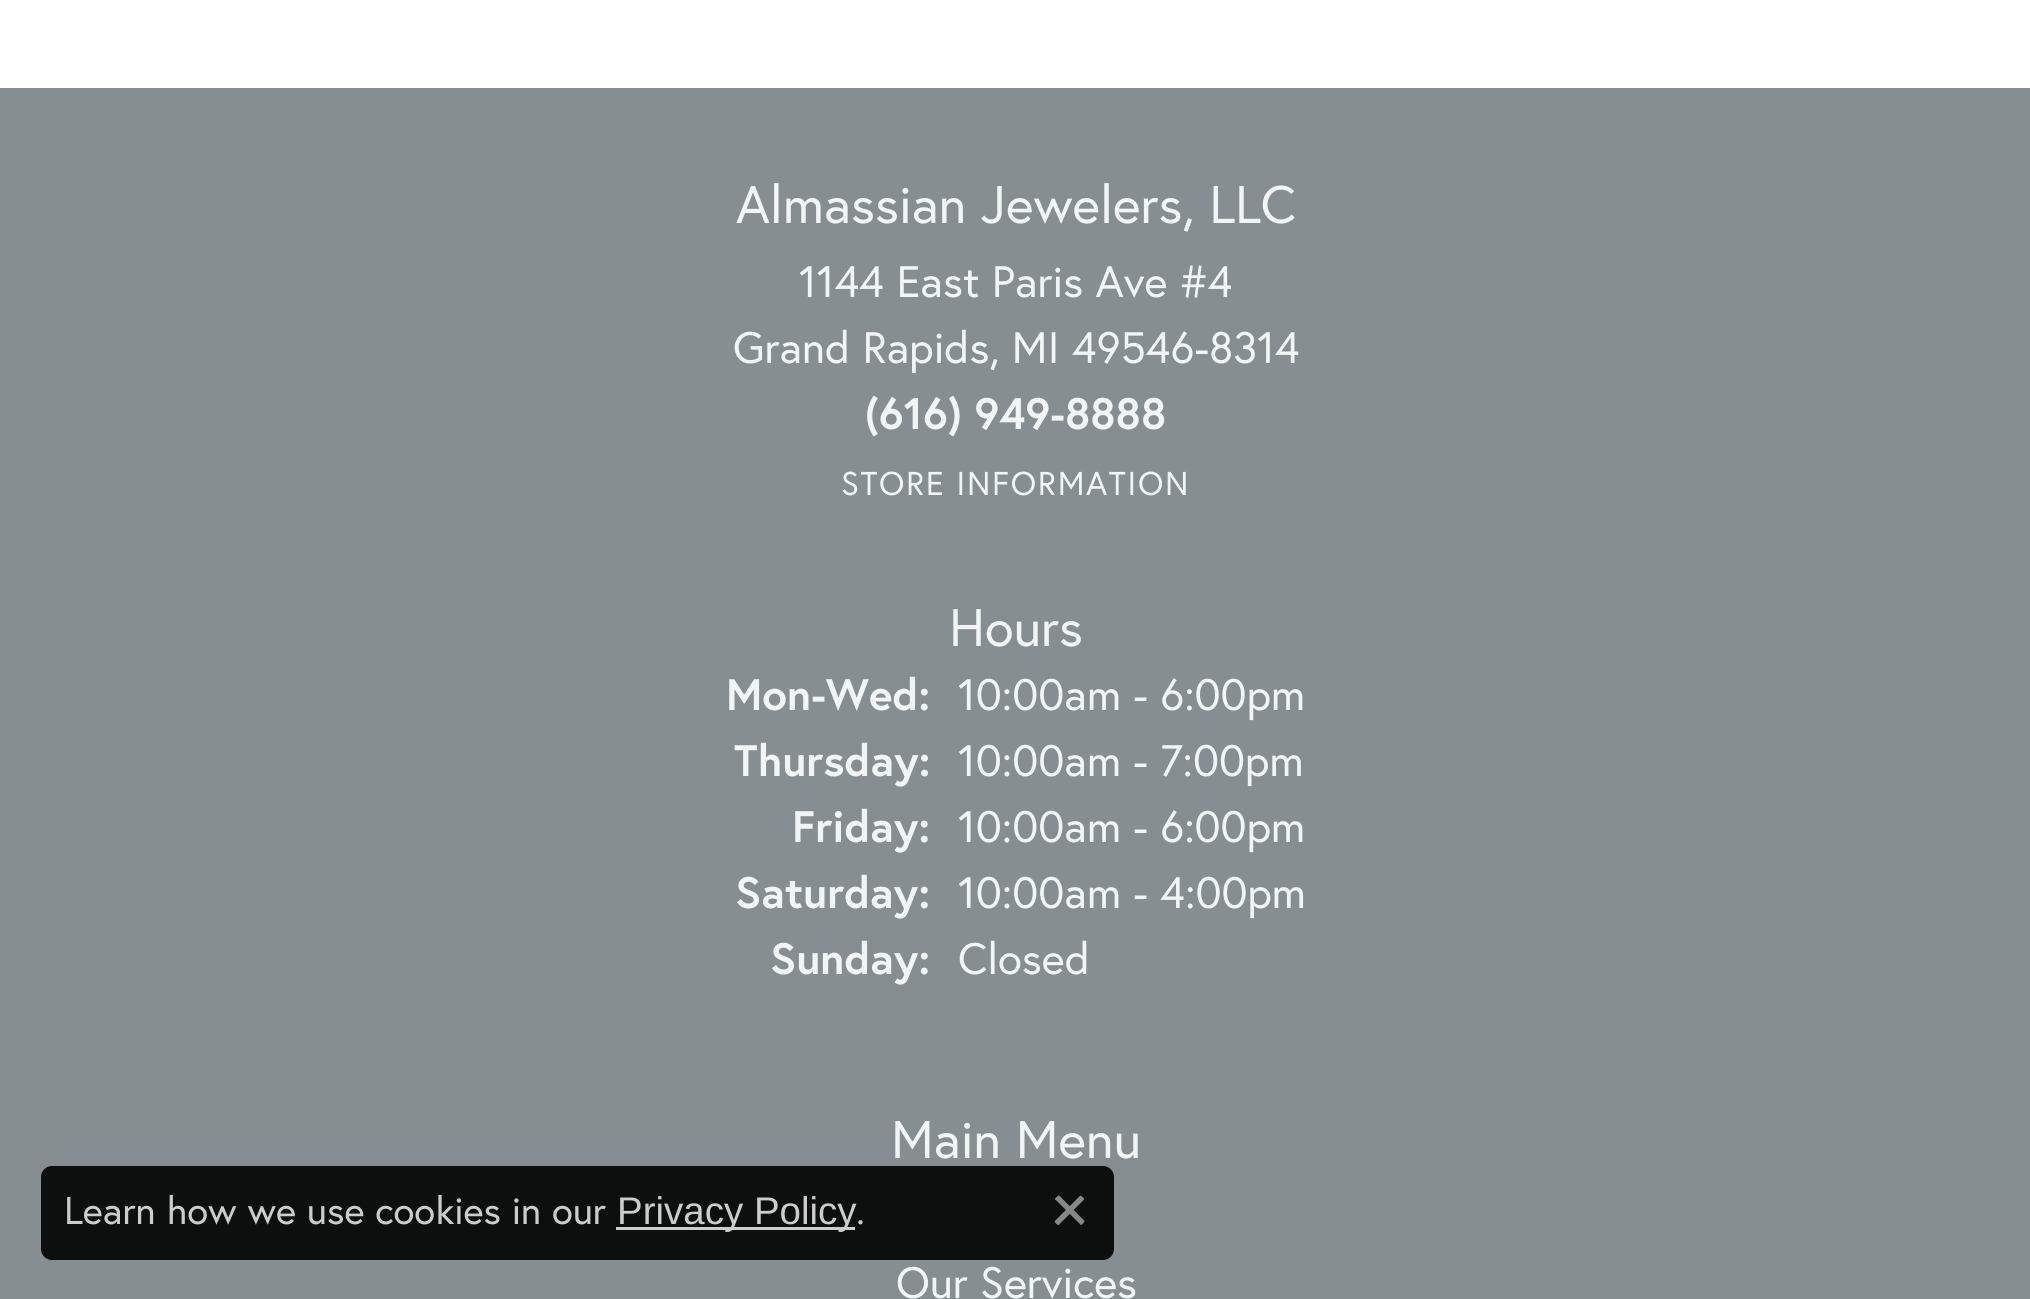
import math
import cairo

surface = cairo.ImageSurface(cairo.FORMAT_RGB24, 2030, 1299)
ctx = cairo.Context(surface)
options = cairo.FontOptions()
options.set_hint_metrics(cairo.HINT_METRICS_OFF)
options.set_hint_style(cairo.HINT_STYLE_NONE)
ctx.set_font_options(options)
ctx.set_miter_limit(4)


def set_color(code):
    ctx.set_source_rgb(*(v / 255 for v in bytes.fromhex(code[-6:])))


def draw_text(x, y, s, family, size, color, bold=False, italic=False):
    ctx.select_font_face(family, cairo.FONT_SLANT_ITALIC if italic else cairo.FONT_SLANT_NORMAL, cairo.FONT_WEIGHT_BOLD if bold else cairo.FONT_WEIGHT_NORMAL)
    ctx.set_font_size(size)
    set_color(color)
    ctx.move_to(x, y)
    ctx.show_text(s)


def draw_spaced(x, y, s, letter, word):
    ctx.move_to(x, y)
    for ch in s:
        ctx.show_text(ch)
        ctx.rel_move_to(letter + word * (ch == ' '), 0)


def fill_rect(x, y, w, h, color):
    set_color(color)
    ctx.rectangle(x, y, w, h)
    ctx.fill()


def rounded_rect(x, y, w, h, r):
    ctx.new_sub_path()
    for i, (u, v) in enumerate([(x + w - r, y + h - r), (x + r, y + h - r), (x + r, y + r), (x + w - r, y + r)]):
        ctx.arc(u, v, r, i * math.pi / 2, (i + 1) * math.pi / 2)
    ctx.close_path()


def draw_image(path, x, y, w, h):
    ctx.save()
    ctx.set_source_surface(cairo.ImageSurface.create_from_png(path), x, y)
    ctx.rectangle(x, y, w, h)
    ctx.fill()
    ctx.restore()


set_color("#868e91")
ctx.paint()
fill_rect(0, 0, 2030, 88, "#ffffff")
ctx.set_source_rgba(0, 0, 0, 0.9)
rounded_rect(41, 1166, 1073, 94, 11)
ctx.fill()
draw_text(64, 1224, "Learn how we use cookies in our", "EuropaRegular", 38.5, "#cccccc")
fill_rect(616, 1227, 239, 3, "#cccccc")
draw_text(617, 1224, "Privacy Policy", "Liberation Sans", 38.5, "#cccccc")
draw_text(856, 1224, ".", "EuropaRegular", 38.5, "#cccccc")
draw_image("assets/img1.png", 1054, 1195, 31, 31)
draw_text(736, 223, "Almassian Jewelers, LLC", "EuropaRegular", 52.75, "#f1f5f6")
draw_text(799, 297, "1144 East Paris Ave #4", "EuropaRegular", 44, "#f1f5f6")
draw_text(733, 363, "Grand Rapids, MI 49546-8314", "EuropaRegular", 44, "#f1f5f6")
draw_text(865, 429, "(616) 949-8888", "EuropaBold", 44, "#f1f5f6", bold=True)
ctx.select_font_face("EuropaRegular")
ctx.set_font_size(33)
draw_spaced(841, 495, "STORE INFORMATION", 1.6, 0)
draw_text(949, 646, "Hours", "EuropaRegular", 52.75, "#f1f5f6")
draw_text(726, 710, "Mon-Wed:", "EuropaBold", 44, "#f1f5f6", bold=True)
draw_text(958, 710, "10:00am - 6:00pm", "EuropaRegular", 44, "#f1f5f6")
draw_text(734, 776, "Thursday:", "EuropaBold", 44, "#f1f5f6", bold=True)
draw_text(958, 776, "10:00am - 7:00pm", "EuropaRegular", 44, "#f1f5f6")
draw_text(792, 842, "Friday:", "EuropaBold", 44, "#f1f5f6", bold=True)
draw_text(958, 842, "10:00am - 6:00pm", "EuropaRegular", 44, "#f1f5f6")
draw_text(735, 908, "Saturday:", "EuropaBold", 44, "#f1f5f6", bold=True)
draw_text(958, 908, "10:00am - 4:00pm", "EuropaRegular", 44, "#f1f5f6")
draw_text(770, 974, "Sunday:", "EuropaBold", 44, "#f1f5f6", bold=True)
draw_text(958, 974, "Closed", "EuropaRegular", 44, "#f1f5f6")
draw_text(891, 1158, "Main Menu", "EuropaRegular", 52.75, "#f1f5f6")
draw_text(896, 1298, "Our Services", "EuropaRegular", 44, "#f1f5f6")
surface.write_to_png("output.png")
